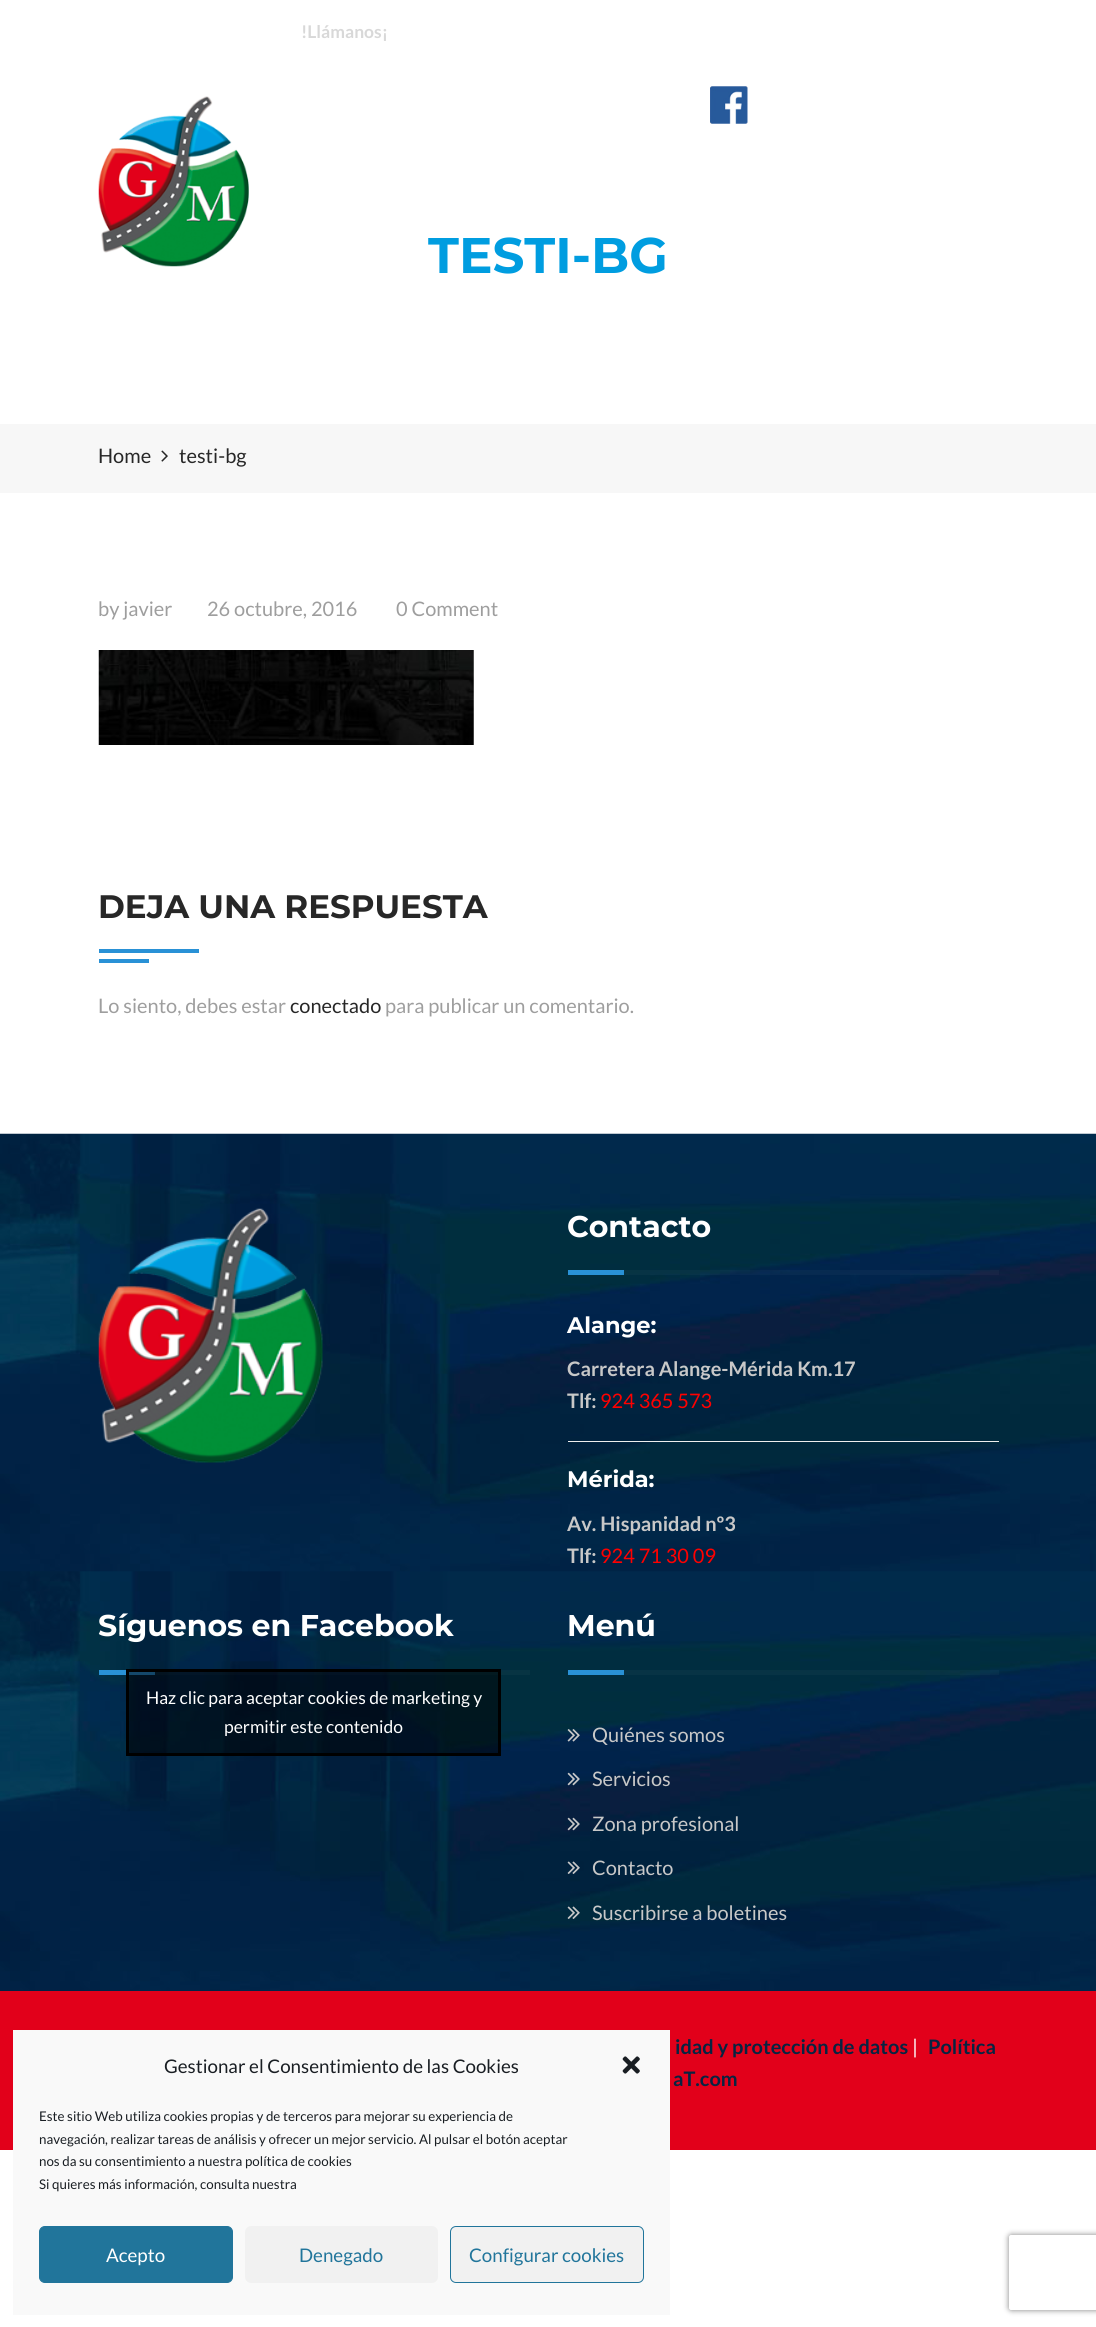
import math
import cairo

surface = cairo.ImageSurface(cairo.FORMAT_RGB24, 1096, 2327)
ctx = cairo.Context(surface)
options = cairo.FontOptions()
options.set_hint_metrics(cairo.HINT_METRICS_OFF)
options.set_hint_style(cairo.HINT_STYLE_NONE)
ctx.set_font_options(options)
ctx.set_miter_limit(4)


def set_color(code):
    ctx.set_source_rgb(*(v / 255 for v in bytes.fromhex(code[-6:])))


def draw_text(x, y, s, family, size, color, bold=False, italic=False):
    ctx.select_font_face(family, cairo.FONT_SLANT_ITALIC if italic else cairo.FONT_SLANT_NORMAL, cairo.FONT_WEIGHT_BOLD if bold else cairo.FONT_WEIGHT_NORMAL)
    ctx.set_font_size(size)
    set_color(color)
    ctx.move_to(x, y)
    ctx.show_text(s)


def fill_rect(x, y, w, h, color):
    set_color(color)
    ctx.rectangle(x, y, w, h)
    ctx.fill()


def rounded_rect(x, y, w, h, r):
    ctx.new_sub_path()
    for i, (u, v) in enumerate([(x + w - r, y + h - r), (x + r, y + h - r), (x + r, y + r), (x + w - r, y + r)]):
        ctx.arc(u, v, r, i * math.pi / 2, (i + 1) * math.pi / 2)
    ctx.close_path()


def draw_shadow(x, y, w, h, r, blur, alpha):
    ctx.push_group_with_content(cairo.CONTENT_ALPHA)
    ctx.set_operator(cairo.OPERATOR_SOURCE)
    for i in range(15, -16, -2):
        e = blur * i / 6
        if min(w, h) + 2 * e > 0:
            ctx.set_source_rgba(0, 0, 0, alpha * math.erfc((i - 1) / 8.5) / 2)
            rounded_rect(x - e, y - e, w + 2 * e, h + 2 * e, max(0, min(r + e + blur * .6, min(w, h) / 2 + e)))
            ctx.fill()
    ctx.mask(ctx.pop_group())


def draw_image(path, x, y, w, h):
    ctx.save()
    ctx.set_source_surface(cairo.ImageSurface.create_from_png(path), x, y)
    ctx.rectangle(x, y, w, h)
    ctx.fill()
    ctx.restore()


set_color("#ffffff")
ctx.paint()
draw_text(301, 38, "!Llámanos¡", "Lato", 17.5, "#d8d8d8", bold=True)
draw_image("assets/img1.png", 710, 86, 38, 38)
draw_image("assets/img2.png", 98, 96, 151, 171)
draw_text(428, 273, "TESTI-BG", "Montserrat", 50, "#009de0", bold=True)
fill_rect(0, 424, 1096, 69, "#f7f7f7")
draw_text(98, 463, "Home", "Lato", 20, "#272727")
draw_image("assets/img3.png", 161, 450, 7, 12)
draw_text(179, 463, "testi-bg", "Lato", 20, "#272727")
draw_text(98, 616, "by javier", "Lato", 20, "#9e9e9e")
draw_text(207, 616, "26 octubre, 2016", "Lato", 20, "#9e9e9e")
draw_text(396, 616, "0 Comment", "Lato", 20, "#9e9e9e")
draw_image("assets/img4.png", 98, 650, 376, 95)
draw_text(98, 918, "DEJA UNA RESPUESTA", "Montserrat", 32.5, "#272727", bold=True)
fill_rect(99, 949, 100, 4, "#2991d6")
fill_rect(99, 959, 50, 4, "#2991d6")
draw_text(98, 1013, "Lo siento, debes estar", "Lato", 20, "#9e9e9e")
draw_text(290, 1013, "conectado", "Lato", 20, "#272727")
draw_text(385, 1013, "para publicar un comentario.", "Lato", 20, "#9e9e9e")
draw_image("assets/img5.png", 0, 1133, 1096, 858)
draw_image("assets/img6.png", 98, 1208, 225, 255)
draw_text(567, 1237, "Contacto", "Montserrat", 30, "#ffffff", bold=True)
fill_rect(568, 1270, 56, 5, "#2991d6")
ctx.set_source_rgba(1, 1, 1, 0.03)
ctx.rectangle(624, 1270, 375, 5)
ctx.fill()
draw_text(567, 1333, "Alange:", "Montserrat", 22.5, "#ffffff", bold=True)
draw_text(567, 1376, "Carretera Alange-Mérida Km.17", "Lato", 20, "#c8c8c8", bold=True)
draw_text(567, 1408, "Tlf:", "Lato", 20, "#c8c8c8", bold=True)
draw_text(600, 1408, "924 365 573", "Lato", 20, "#ff0000")
fill_rect(568, 1441, 431, 1, "#eeeeee")
draw_text(567, 1487, "Mérida:", "Montserrat", 22.5, "#ffffff", bold=True)
draw_text(567, 1531, "Av. Hispanidad nº3", "Lato", 20, "#c8c8c8", bold=True)
draw_text(567, 1563, "Tlf:", "Lato", 20, "#c8c8c8", bold=True)
draw_text(600, 1563, "924 71 30 09", "Lato", 20, "#ff0000")
draw_text(98, 1636, "Síguenos en Facebook", "Montserrat", 30, "#ffffff", bold=True)
fill_rect(99, 1670, 56, 5, "#2991d6")
ctx.set_source_rgba(1, 1, 1, 0.03)
ctx.rectangle(155, 1670, 375, 5)
ctx.fill()
ctx.set_source_rgba(0, 0, 0, 0.5)
ctx.rectangle(127.5, 1670.5, 372, 84)
ctx.fill_preserve()
set_color("#000000")
ctx.set_line_width(3)
ctx.stroke()
draw_text(146, 1704, "Haz clic para aceptar cookies de marketing y", "Lato", 17.5, "#ffffff")
draw_text(224, 1733, "permitir este contenido", "Lato", 17.5, "#ffffff")
draw_text(567, 1636, "Menú", "Montserrat", 30, "#ffffff", bold=True)
fill_rect(568, 1670, 56, 5, "#2991d6")
ctx.set_source_rgba(1, 1, 1, 0.03)
ctx.rectangle(624, 1670, 375, 5)
ctx.fill()
draw_image("assets/img7.png", 567, 1729, 13, 13)
draw_text(592, 1742, "Quiénes somos", "Lato", 20, "#c8c8c8")
draw_image("assets/img8.png", 567, 1772, 13, 14)
draw_text(592, 1786, "Servicios", "Lato", 20, "#c8c8c8")
draw_image("assets/img9.png", 567, 1817, 13, 14)
draw_text(592, 1831, "Zona profesional", "Lato", 20, "#c8c8c8")
draw_image("assets/img10.png", 567, 1861, 13, 13)
draw_text(592, 1875, "Contacto", "Lato", 20, "#c8c8c8")
draw_image("assets/img11.png", 567, 1906, 13, 13)
draw_text(592, 1920, "Suscribirse a boletines", "Lato", 20, "#c8c8c8")
fill_rect(0, 1991, 1096, 159, "#e2001a")
draw_text(675, 2054, "idad y protección de datos", "Lato", 20, "#072442", bold=True)
draw_text(912, 2054, "|", "Lato", 20, "#ffffff")
draw_text(928, 2054, "Política", "Lato", 20, "#072442", bold=True)
draw_text(673, 2086, "aT.com", "Lato", 20, "#072442", bold=True)
fill_rect(13, 2030, 657, 285, "#f9f9f9")
draw_text(164, 2073, "Gestionar el Consentimiento de las Cookies", "Lato", 18.75, "#191e23")
draw_image("assets/img12.png", 622, 2056, 18, 18)
draw_text(39, 2121, "Este sitio Web utiliza cookies propias y de terceros para mejorar su experiencia de", "Lato", 13.35, "#191e23")
draw_text(39, 2144, "navegación, realizar tareas de análisis y ofrecer un mejor servicio. Al pulsar el botón aceptar", "Lato", 13.35, "#191e23")
draw_text(39, 2166, "nos da su consentimiento a nuestra política de cookies", "Lato", 13.35, "#191e23")
draw_text(39, 2189, "Si quieres más información, consulta nuestra", "Lato", 13.35, "#191e23")
set_color("#21759b")
rounded_rect(39.5, 2226.5, 193, 56, 5.5)
ctx.fill_preserve()
ctx.set_line_width(1)
ctx.stroke()
draw_text(106, 2262, "Acepto", "Lato", 18.75, "#ffffff")
set_color("#f1f1f1")
rounded_rect(245, 2226, 193, 57, 6)
ctx.fill()
draw_text(299, 2262, "Denegado", "Lato", 18.75, "#21759b")
set_color("#f1f1f1")
rounded_rect(450.5, 2226.5, 193, 56, 5.5)
ctx.fill_preserve()
set_color("#21759b")
ctx.stroke()
draw_text(469, 2262, "Configurar cookies", "Lato", 18.75, "#21759b")
ctx.save()
ctx.set_fill_rule(cairo.FILL_RULE_EVEN_ODD)
ctx.new_path()
ctx.move_to(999, 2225)
ctx.line_to(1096, 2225)
ctx.line_to(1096, 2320)
ctx.line_to(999, 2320)
ctx.close_path()
ctx.move_to(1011.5, 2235)
ctx.line_to(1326.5, 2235)
ctx.curve_to(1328, 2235, 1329, 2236, 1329, 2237.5)
ctx.line_to(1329, 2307.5)
ctx.curve_to(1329, 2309, 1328, 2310, 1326.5, 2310)
ctx.line_to(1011.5, 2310)
ctx.curve_to(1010, 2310, 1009, 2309, 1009, 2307.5)
ctx.line_to(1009, 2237.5)
ctx.curve_to(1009, 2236, 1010, 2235, 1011.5, 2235)
ctx.close_path()
ctx.clip()
set_color("#808080")
draw_shadow(1009, 2235, 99, 75, 2.5, 3, 1)
ctx.restore()
surface.write_to_png("output.png")
